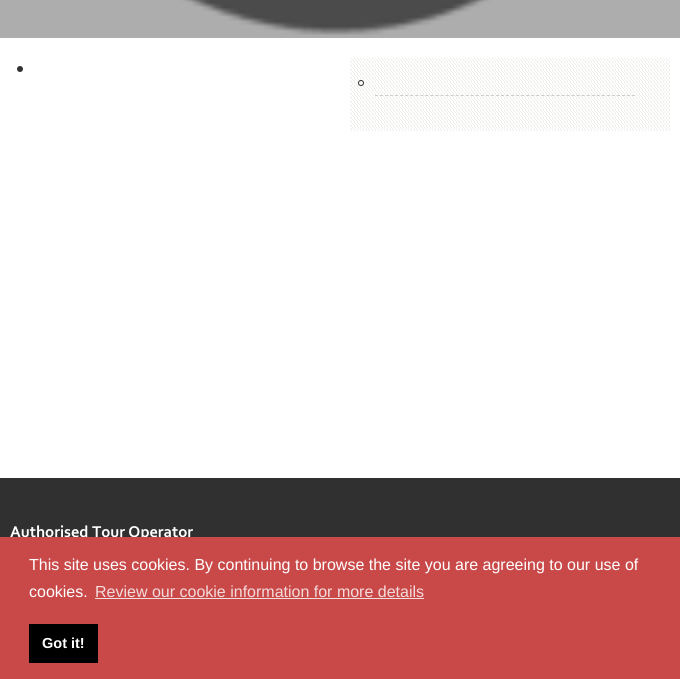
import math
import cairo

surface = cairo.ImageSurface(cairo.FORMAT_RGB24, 680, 679)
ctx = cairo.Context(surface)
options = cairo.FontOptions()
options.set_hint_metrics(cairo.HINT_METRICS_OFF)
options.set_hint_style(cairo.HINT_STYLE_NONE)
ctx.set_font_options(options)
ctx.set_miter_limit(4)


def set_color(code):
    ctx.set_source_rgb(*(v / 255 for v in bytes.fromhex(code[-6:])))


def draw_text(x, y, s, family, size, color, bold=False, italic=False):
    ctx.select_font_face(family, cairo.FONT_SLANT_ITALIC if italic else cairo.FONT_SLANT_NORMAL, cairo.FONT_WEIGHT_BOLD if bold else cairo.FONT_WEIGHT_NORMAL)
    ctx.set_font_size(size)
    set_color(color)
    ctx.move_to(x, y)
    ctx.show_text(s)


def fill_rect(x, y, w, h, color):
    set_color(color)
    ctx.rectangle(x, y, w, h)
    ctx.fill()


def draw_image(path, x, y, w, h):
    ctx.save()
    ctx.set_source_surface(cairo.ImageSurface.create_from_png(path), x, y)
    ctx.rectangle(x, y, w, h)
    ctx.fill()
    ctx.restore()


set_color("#ffffff")
ctx.paint()
draw_image("assets/img1.png", 0, 0, 680, 38)
set_color("#333333")
ctx.arc(20, 69, 3, 0, 2 * math.pi)
ctx.fill()
draw_image("assets/img2.png", 350, 58, 320, 73)
ctx.new_path()
ctx.move_to(375, 95.5)
ctx.line_to(635, 95.5)
set_color("#cccccc")
ctx.set_line_width(1)
ctx.set_dash([3, 2.04])
ctx.stroke()
ctx.arc(361, 83, 2.5, 0, 2 * math.pi)
set_color("#333333")
ctx.set_dash([])
ctx.stroke()
fill_rect(0, 478, 680, 59, "#303030")
draw_text(10, 537, "Authorised Tour Operator", "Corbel", 16.4, "#ffffff", bold=True)
fill_rect(0, 537, 680, 142, "#c94949")
draw_text(29, 570, "This site uses cookies. By continuing to browse the site you are agreeing to our use of", "Liberation Sans", 16, "#ffffff")
draw_text(29, 597, "cookies.", "Liberation Sans", 16, "#ffffff")
draw_text(95, 597, "Review our cookie information for more details", "Liberation Sans", 16, "#f4dbdb")
fill_rect(95, 598, 329, 1, "#f4dbdb")
fill_rect(29, 624, 69, 39, "#000000")
draw_text(42, 648, "Got it!", "Liberation Sans", 14.5, "#ffffff", bold=True)
surface.write_to_png("output.png")
